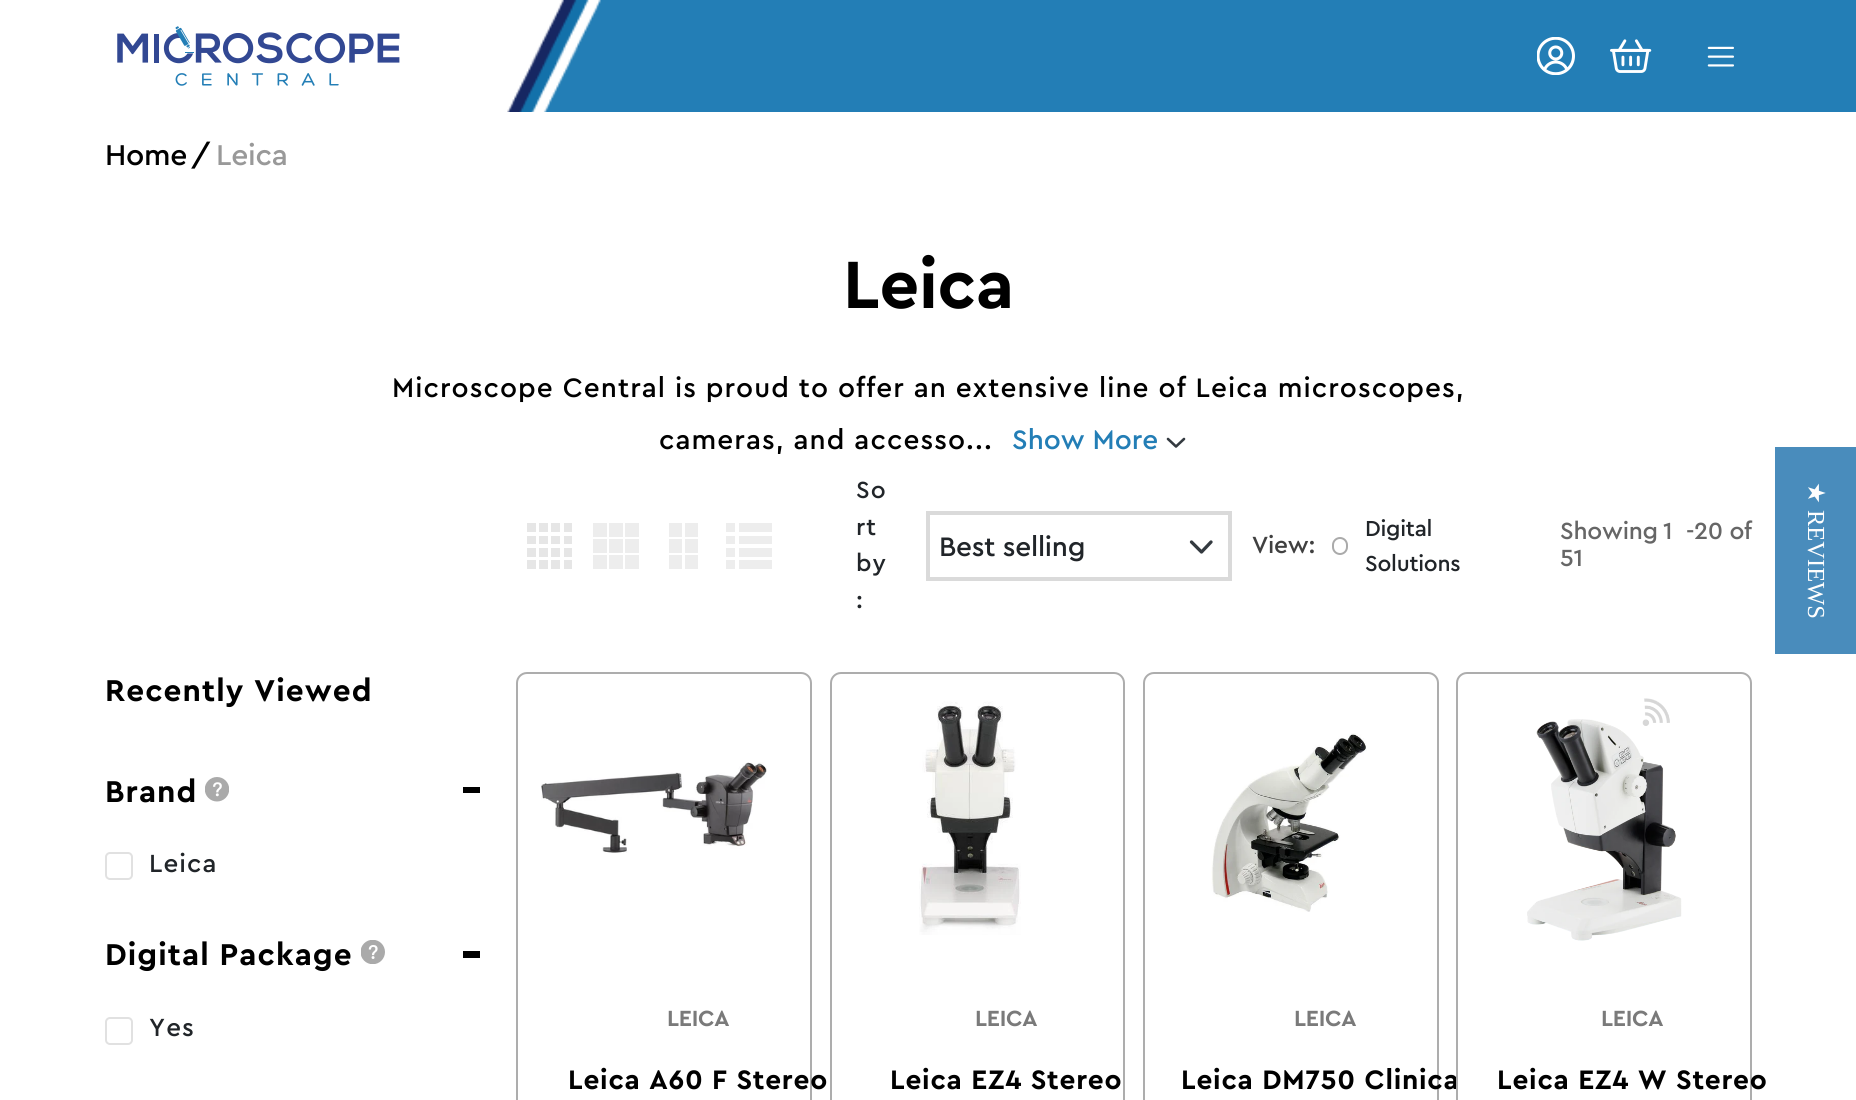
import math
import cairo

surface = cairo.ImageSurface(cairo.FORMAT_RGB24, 1856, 1100)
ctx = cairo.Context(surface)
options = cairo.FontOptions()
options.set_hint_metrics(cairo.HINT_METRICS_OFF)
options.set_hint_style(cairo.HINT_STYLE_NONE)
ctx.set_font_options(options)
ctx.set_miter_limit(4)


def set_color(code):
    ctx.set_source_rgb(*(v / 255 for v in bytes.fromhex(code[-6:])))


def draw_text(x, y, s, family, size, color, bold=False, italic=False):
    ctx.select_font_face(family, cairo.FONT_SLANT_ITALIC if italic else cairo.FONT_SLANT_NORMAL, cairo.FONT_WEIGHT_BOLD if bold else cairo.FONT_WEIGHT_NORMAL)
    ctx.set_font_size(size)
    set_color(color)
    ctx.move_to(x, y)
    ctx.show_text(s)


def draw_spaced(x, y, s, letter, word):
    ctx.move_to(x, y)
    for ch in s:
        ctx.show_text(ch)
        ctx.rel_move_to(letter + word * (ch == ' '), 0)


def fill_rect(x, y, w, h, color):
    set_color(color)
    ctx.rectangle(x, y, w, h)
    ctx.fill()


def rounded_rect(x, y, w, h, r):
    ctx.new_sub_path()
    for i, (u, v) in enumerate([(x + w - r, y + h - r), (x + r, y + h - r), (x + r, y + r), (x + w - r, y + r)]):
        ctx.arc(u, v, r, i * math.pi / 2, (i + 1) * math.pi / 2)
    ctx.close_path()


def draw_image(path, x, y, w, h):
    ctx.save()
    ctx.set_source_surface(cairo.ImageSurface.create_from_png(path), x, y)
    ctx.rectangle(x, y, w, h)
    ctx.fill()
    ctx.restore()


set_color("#ffffff")
ctx.paint()
draw_image("assets/img1.png", 507, 0, 1349, 112)
draw_image("assets/img2.png", 117, 26, 283, 60)
draw_image("assets/img3.png", 1537, 37, 38, 38)
draw_image("assets/img4.png", 1610, 39, 42, 34)
draw_image("assets/img5.png", 1707, 46, 27, 21)
ctx.select_font_face("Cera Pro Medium")
ctx.set_font_size(30)
set_color("#000000")
draw_spaced(105, 165, "Home", -0.25, 0)
draw_spaced(191, 165, "/", -0.25, 0)
set_color("#999999")
draw_spaced(216, 165, "Leica", -0.25, 0)
ctx.select_font_face("Cera Pro", cairo.FONT_SLANT_NORMAL, cairo.FONT_WEIGHT_BOLD)
ctx.set_font_size(70)
set_color("#000000")
draw_spaced(843, 308, "Leica", -0.25, 0)
ctx.select_font_face("Cera Pro Medium")
ctx.set_font_size(28)
draw_spaced(392, 397, "Microscope Central is proud to offer an extensive line of Leica microscopes,", 1.05, 0)
draw_spaced(659, 449, "cameras, and accesso...", 1.05, 0)
draw_text(1012, 449, "Show More", "Cera Pro Medium", 28, "#237eb6")
ctx.new_path()
ctx.move_to(1168, 439)
ctx.line_to(1176, 446.5)
ctx.line_to(1184, 439)
set_color("#343a40")
ctx.set_line_width(2.6)
ctx.set_line_cap(cairo.LINE_CAP_ROUND)
ctx.set_line_join(cairo.LINE_JOIN_ROUND)
ctx.stroke()
draw_image("assets/img6.png", 527, 523, 45, 46)
fill_rect(593, 523, 14, 14, "#ededed")
fill_rect(609, 523, 14, 14, "#ededed")
fill_rect(625, 523, 14, 14, "#ededed")
fill_rect(593, 539, 14, 14, "#ededed")
fill_rect(609, 539, 14, 14, "#ededed")
fill_rect(625, 539, 14, 14, "#ededed")
fill_rect(593, 555, 14, 14, "#ededed")
fill_rect(609, 555, 14, 14, "#ededed")
fill_rect(625, 555, 14, 14, "#ededed")
fill_rect(669, 523, 13, 14, "#ededed")
fill_rect(685, 523, 13, 14, "#ededed")
fill_rect(669, 539, 13, 14, "#ededed")
fill_rect(685, 539, 13, 14, "#ededed")
fill_rect(669, 555, 13, 14, "#ededed")
fill_rect(685, 555, 13, 14, "#ededed")
fill_rect(726, 523, 9, 9, "#ededed")
fill_rect(739, 523, 33, 9, "#ededed")
fill_rect(739, 536, 33, 8, "#ededed")
fill_rect(739, 548, 33, 9, "#ededed")
fill_rect(739, 560, 33, 9, "#ededed")
fill_rect(726, 536, 9, 8, "#ededed")
fill_rect(726, 548, 9, 9, "#ededed")
fill_rect(726, 560, 9, 9, "#ededed")
ctx.set_font_size(24.5)
set_color("#212529")
draw_spaced(856, 498, "So", 1, 0)
draw_spaced(856, 535, "rt", 1, 0)
draw_spaced(856, 571, "by", 1, 0)
draw_spaced(856, 608, ":", 1, 0)
ctx.new_path()
ctx.move_to(1191.5, 542)
ctx.line_to(1201.5, 552)
ctx.line_to(1211, 542)
set_color("#343a40")
ctx.set_line_width(3.3)
ctx.stroke()
ctx.rectangle(928, 513, 302, 66)
set_color("#dadada")
ctx.set_line_width(4)
ctx.set_line_cap(cairo.LINE_CAP_BUTT)
ctx.set_line_join(cairo.LINE_JOIN_MITER)
ctx.stroke()
ctx.set_font_size(28)
set_color("#212529")
draw_spaced(939, 556, "Best selling", -0.25, 0)
ctx.set_font_size(24.5)
set_color("#404040")
draw_spaced(1252, 553, "View:", -0.25, 0)
ctx.set_font_size(22.75)
set_color("#212529")
draw_spaced(1365, 536, "Digital", -0.25, 0)
rounded_rect(1333, 538, 14, 16, 7)
set_color("#aaaaaa")
ctx.set_line_width(2)
ctx.stroke()
set_color("#212529")
draw_spaced(1365, 571, "Solutions", -0.25, 0)
ctx.set_font_size(24.5)
set_color("#666666")
draw_spaced(1560, 539, "Showing", -0.25, 0)
draw_spaced(1663, 539, "1 -", -0.25, 7)
draw_spaced(1694, 539, "20 of", -0.25, 0)
draw_spaced(1560, 566, "51", -0.25, 0)
ctx.select_font_face("Cera Pro", cairo.FONT_SLANT_NORMAL, cairo.FONT_WEIGHT_BOLD)
ctx.set_font_size(31.5)
set_color("#000000")
draw_spaced(105, 701, "Recently Viewed", 1.05, 0)
draw_spaced(105, 802, "Brand", 1.05, 0)
draw_image("assets/img7.png", 205, 777, 24, 25)
fill_rect(463, 787, 17, 6, "#000000")
rounded_rect(106, 853, 26, 26, 4)
set_color("#e1e1e1")
ctx.stroke()
ctx.select_font_face("Cera Pro Medium")
ctx.set_font_size(26)
set_color("#212529")
draw_spaced(149, 872, "Leica", 1.05, 0)
ctx.select_font_face("Cera Pro", cairo.FONT_SLANT_NORMAL, cairo.FONT_WEIGHT_BOLD)
ctx.set_font_size(31.5)
set_color("#000000")
draw_spaced(105, 965, "Digital Package", 1.05, 0)
draw_image("assets/img8.png", 361, 940, 24, 24)
fill_rect(463, 951, 17, 7, "#000000")
rounded_rect(106, 1018, 26, 26, 4)
set_color("#e1e1e1")
ctx.stroke()
ctx.select_font_face("Cera Pro Medium")
ctx.set_font_size(26)
set_color("#212529")
draw_spaced(149, 1036, "Yes", 1.05, 0)
rounded_rect(517, 673, 294, 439, 10)
set_color("#adadad")
ctx.stroke()
draw_image("assets/img9.png", 541, 762, 226, 91)
ctx.select_font_face("Cera Pro", cairo.FONT_SLANT_NORMAL, cairo.FONT_WEIGHT_BOLD)
ctx.set_font_size(23)
set_color("#7a7a7a")
draw_spaced(667, 1026, "LEICA", -0.25, 0)
ctx.set_font_size(28)
set_color("#000000")
draw_spaced(568, 1089, "Leica A60 F Stereo", 0.75, 0)
rounded_rect(831, 673, 293, 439, 10)
set_color("#adadad")
ctx.stroke()
draw_image("assets/img10.png", 919, 701, 102, 234)
ctx.set_font_size(23)
set_color("#7a7a7a")
draw_spaced(975, 1026, "LEICA", -0.25, 0)
ctx.set_font_size(28)
set_color("#000000")
draw_spaced(890, 1089, "Leica EZ4 Stereo", 0.75, 0)
rounded_rect(1144, 673, 294, 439, 10)
set_color("#adadad")
ctx.stroke()
draw_image("assets/img11.png", 1211, 733, 156, 179)
ctx.set_font_size(23)
set_color("#7a7a7a")
draw_spaced(1294, 1026, "LEICA", -0.25, 0)
ctx.set_font_size(28)
set_color("#000000")
draw_spaced(1181, 1089, "Leica DM750 Clinica", 0.75, 0)
set_color("#ffffff")
rounded_rect(1457, 673, 294, 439, 10)
ctx.fill_preserve()
set_color("#adadad")
ctx.stroke()
draw_image("assets/img12.png", 1527, 698, 155, 243)
ctx.set_font_size(23)
set_color("#7a7a7a")
draw_spaced(1601, 1026, "LEICA", -0.25, 0)
ctx.set_font_size(28)
set_color("#000000")
draw_spaced(1497, 1089, "Leica EZ4 W Stereo", 0.75, 0)
fill_rect(1775, 447, 81, 207, "#498cbc")
ctx.save()
ctx.translate(1808, 482)
ctx.rotate(90 * math.pi / 180)
draw_text(0, 0, "★", "DejaVu Sans", 24.5, "#fefefe")
ctx.restore()
ctx.save()
ctx.translate(1808, 510)
ctx.rotate(90 * math.pi / 180)
draw_text(0, 0, "REVIEWS", "Liberation Serif", 24.5, "#fefefe")
ctx.restore()
surface.write_to_png("output.png")
